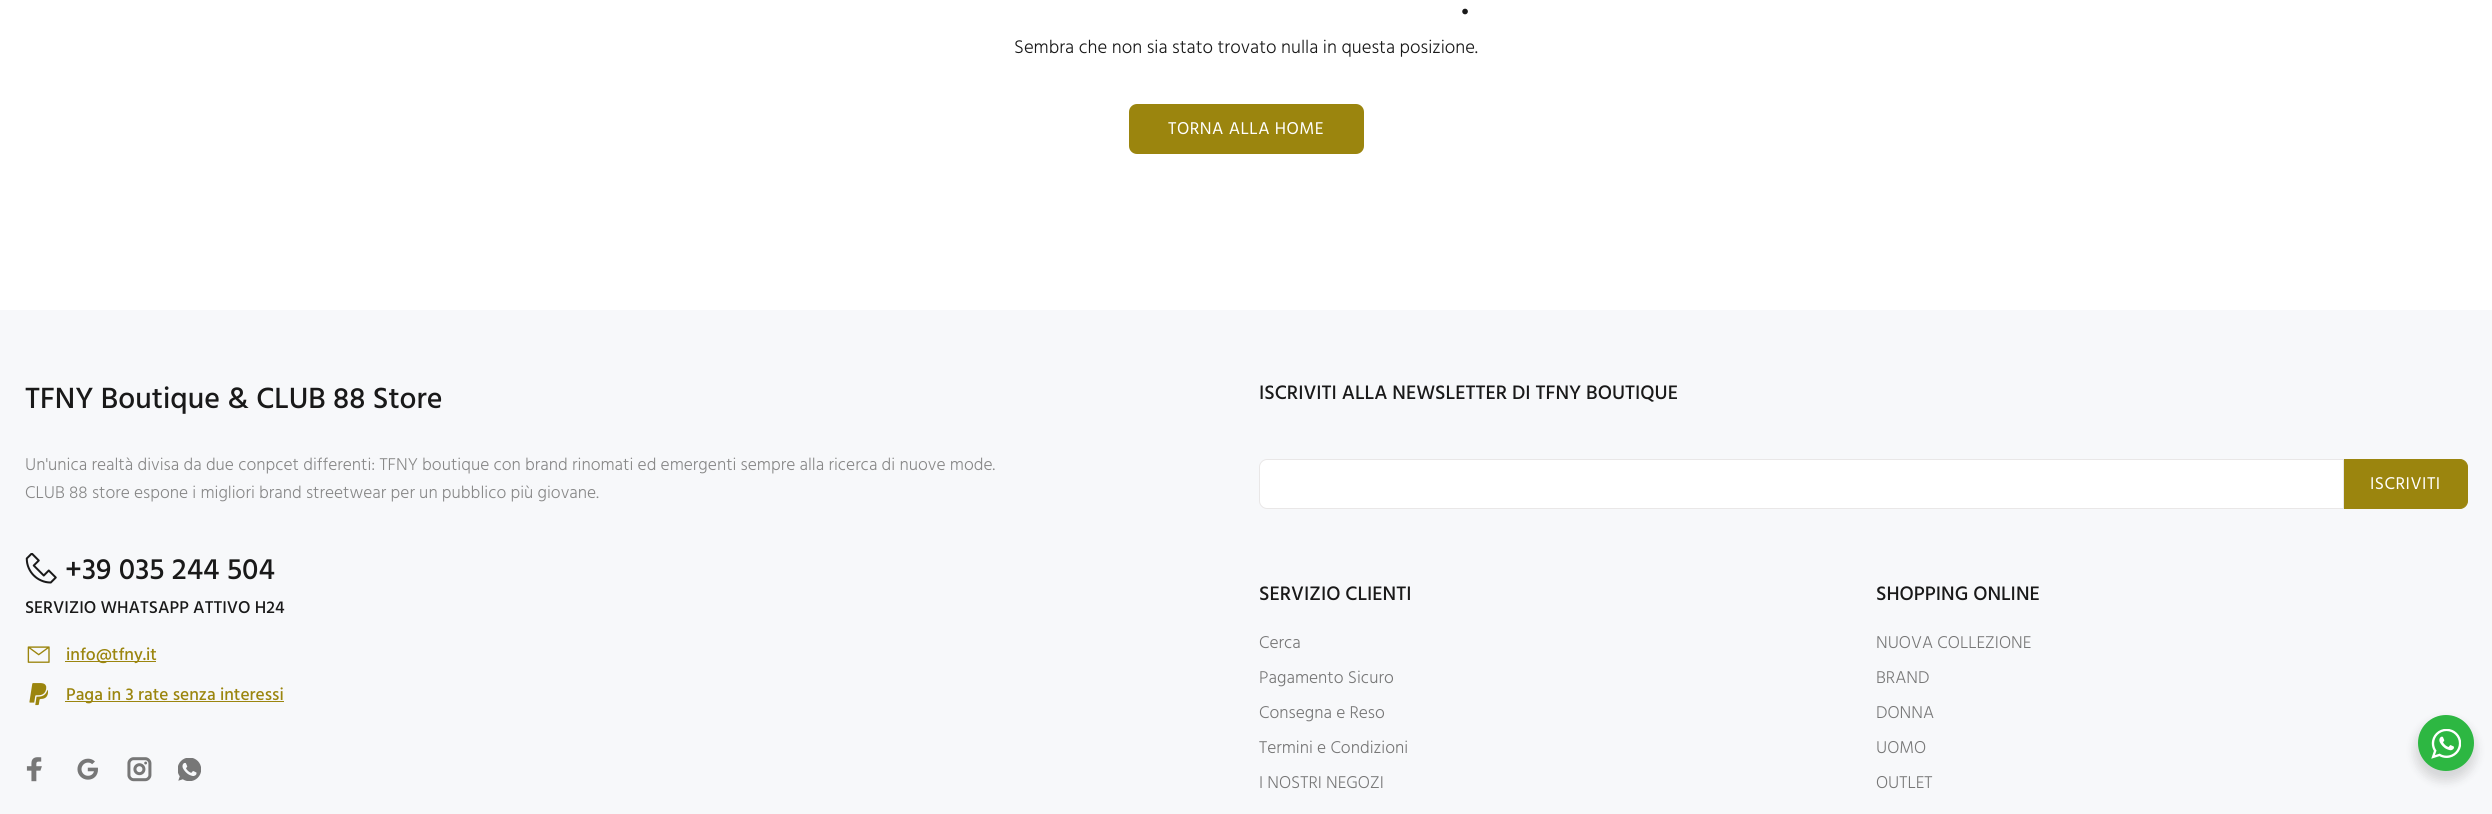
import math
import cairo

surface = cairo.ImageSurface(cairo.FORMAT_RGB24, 2492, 814)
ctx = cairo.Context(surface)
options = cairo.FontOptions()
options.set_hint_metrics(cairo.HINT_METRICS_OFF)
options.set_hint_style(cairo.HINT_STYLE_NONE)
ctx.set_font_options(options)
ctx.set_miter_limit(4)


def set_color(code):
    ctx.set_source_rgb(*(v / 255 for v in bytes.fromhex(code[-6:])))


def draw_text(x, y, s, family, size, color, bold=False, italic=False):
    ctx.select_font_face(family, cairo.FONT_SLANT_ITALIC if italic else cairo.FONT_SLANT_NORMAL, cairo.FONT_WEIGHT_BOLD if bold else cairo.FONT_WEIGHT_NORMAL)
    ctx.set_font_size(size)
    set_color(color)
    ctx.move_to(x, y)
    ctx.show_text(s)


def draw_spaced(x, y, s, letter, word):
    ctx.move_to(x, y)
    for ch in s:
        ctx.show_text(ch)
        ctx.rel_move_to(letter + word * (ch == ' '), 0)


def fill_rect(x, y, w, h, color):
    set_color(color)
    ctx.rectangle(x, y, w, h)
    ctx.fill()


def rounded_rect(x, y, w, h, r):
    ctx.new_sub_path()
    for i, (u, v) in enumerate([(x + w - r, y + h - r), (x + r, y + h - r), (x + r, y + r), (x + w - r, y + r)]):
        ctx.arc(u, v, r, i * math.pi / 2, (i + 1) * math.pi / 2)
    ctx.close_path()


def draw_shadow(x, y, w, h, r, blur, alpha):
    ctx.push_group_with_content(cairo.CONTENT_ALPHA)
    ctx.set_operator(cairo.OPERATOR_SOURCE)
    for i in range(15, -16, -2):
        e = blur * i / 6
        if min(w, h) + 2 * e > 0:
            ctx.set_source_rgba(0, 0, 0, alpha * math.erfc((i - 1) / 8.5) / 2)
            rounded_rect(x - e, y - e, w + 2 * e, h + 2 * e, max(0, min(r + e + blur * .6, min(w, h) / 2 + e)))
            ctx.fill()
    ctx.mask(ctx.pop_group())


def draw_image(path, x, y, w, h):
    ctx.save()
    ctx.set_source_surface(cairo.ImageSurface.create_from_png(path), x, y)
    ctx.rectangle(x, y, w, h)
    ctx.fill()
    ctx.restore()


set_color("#ffffff")
ctx.paint()
draw_text(1461, 14, ".", "Hind Medium", 42, "#191919")
draw_text(1014, 53, "Sembra che non sia stato trovato nulla in questa posizione.", "Hind Light", 18.75, "#191919")
set_color("#9b850e")
rounded_rect(1129, 104, 235, 50, 8)
ctx.fill()
ctx.select_font_face("Hind")
ctx.set_font_size(17.5)
set_color("#ffffff")
draw_spaced(1168, 134, "TORNA ALLA HOME", 0.5, 0)
fill_rect(0, 310, 2492, 504, "#f7f8fa")
draw_text(25, 408, "TFNY Boutique & CLUB 88 Store", "Hind Medium", 30, "#191919")
draw_text(25, 470, "Un'unica realtà divisa da due conpcet differenti: TFNY boutique con brand rinomati ed emergenti sempre alla ricerca di nuove mode.", "Hind Light", 17.5, "#888888")
draw_text(25, 498, "CLUB 88 store espone i migliori brand streetwear per un pubblico più giovane.", "Hind Light", 17.5, "#888888")
draw_image("assets/img1.png", 25, 553, 32, 31)
draw_text(65, 579, "+39 035 244 504", "Hind Medium", 30, "#191919")
draw_text(25, 613, "SERVIZIO WHATSAPP ATTIVO H24", "Hind Medium", 17.5, "#191919")
draw_image("assets/img2.png", 27, 646, 23, 17)
fill_rect(65, 661, 91, 1, "#9b850e")
draw_text(66, 660, "info@tfny.it", "Hind Medium", 17.5, "#9b850e")
draw_image("assets/img3.png", 29, 683, 19, 23)
fill_rect(65, 701, 219, 1, "#9b850e")
draw_text(66, 700, "Paga in 3 rate senza interessi", "Hind Medium", 17.5, "#9b850e")
draw_image("assets/img4.png", 26, 757, 16, 25)
draw_image("assets/img5.png", 77, 758, 21, 22)
draw_image("assets/img6.png", 127, 757, 25, 25)
draw_image("assets/img7.png", 178, 758, 23, 23)
draw_text(1259, 399, "ISCRIVITI ALLA NEWSLETTER DI TFNY BOUTIQUE", "Hind Medium", 20, "#191919")
set_color("#ffffff")
ctx.new_path()
ctx.move_to(1267, 459.5)
ctx.line_to(2343.5, 459.5)
ctx.line_to(2343.5, 508.5)
ctx.line_to(1267, 508.5)
ctx.curve_to(1263, 508.5, 1259.5, 505, 1259.5, 501)
ctx.line_to(1259.5, 467)
ctx.curve_to(1259.5, 463, 1263, 459.5, 1267, 459.5)
ctx.close_path()
ctx.fill_preserve()
set_color("#e9e7e7")
ctx.set_line_width(1)
ctx.stroke()
set_color("#9b850e")
ctx.new_path()
ctx.move_to(2344.5, 459.5)
ctx.line_to(2460, 459.5)
ctx.curve_to(2464, 459.5, 2467.5, 463, 2467.5, 467)
ctx.line_to(2467.5, 501)
ctx.curve_to(2467.5, 505, 2464, 508.5, 2460, 508.5)
ctx.line_to(2344.5, 508.5)
ctx.close_path()
ctx.fill_preserve()
ctx.stroke()
ctx.select_font_face("Hind")
ctx.set_font_size(17.5)
set_color("#ffffff")
draw_spaced(2370, 489, "ISCRIVITI", 0.5, 0)
draw_text(1259, 600, "SERVIZIO CLIENTI", "Hind Medium", 20, "#191919")
draw_text(1259, 648, "Cerca", "Hind Light", 17.5, "#777777")
draw_text(1259, 683, "Pagamento Sicuro", "Hind Light", 17.5, "#777777")
draw_text(1259, 718, "Consegna e Reso", "Hind Light", 17.5, "#777777")
draw_text(1259, 753, "Termini e Condizioni", "Hind Light", 17.5, "#777777")
draw_text(1259, 788, "I NOSTRI NEGOZI", "Hind Light", 17.5, "#777777")
draw_text(1876, 600, "SHOPPING ONLINE", "Hind Medium", 20, "#191919")
draw_text(1876, 648, "NUOVA COLLEZIONE", "Hind Light", 17.5, "#777777")
draw_text(1876, 683, "BRAND", "Hind Light", 17.5, "#777777")
draw_text(1876, 718, "DONNA", "Hind Light", 17.5, "#777777")
draw_text(1876, 753, "UOMO", "Hind Light", 17.5, "#777777")
draw_text(1876, 788, "OUTLET", "Hind Light", 17.5, "#777777")
set_color("#000000")
draw_shadow(2415, 720, 61, 61, 30.5, 5, 0.14)
set_color("#2db742")
ctx.arc(2446, 743, 28, 0, 2 * math.pi)
ctx.fill()
draw_image("assets/img8.png", 2431, 729, 30, 30)
surface.write_to_png("output.png")
